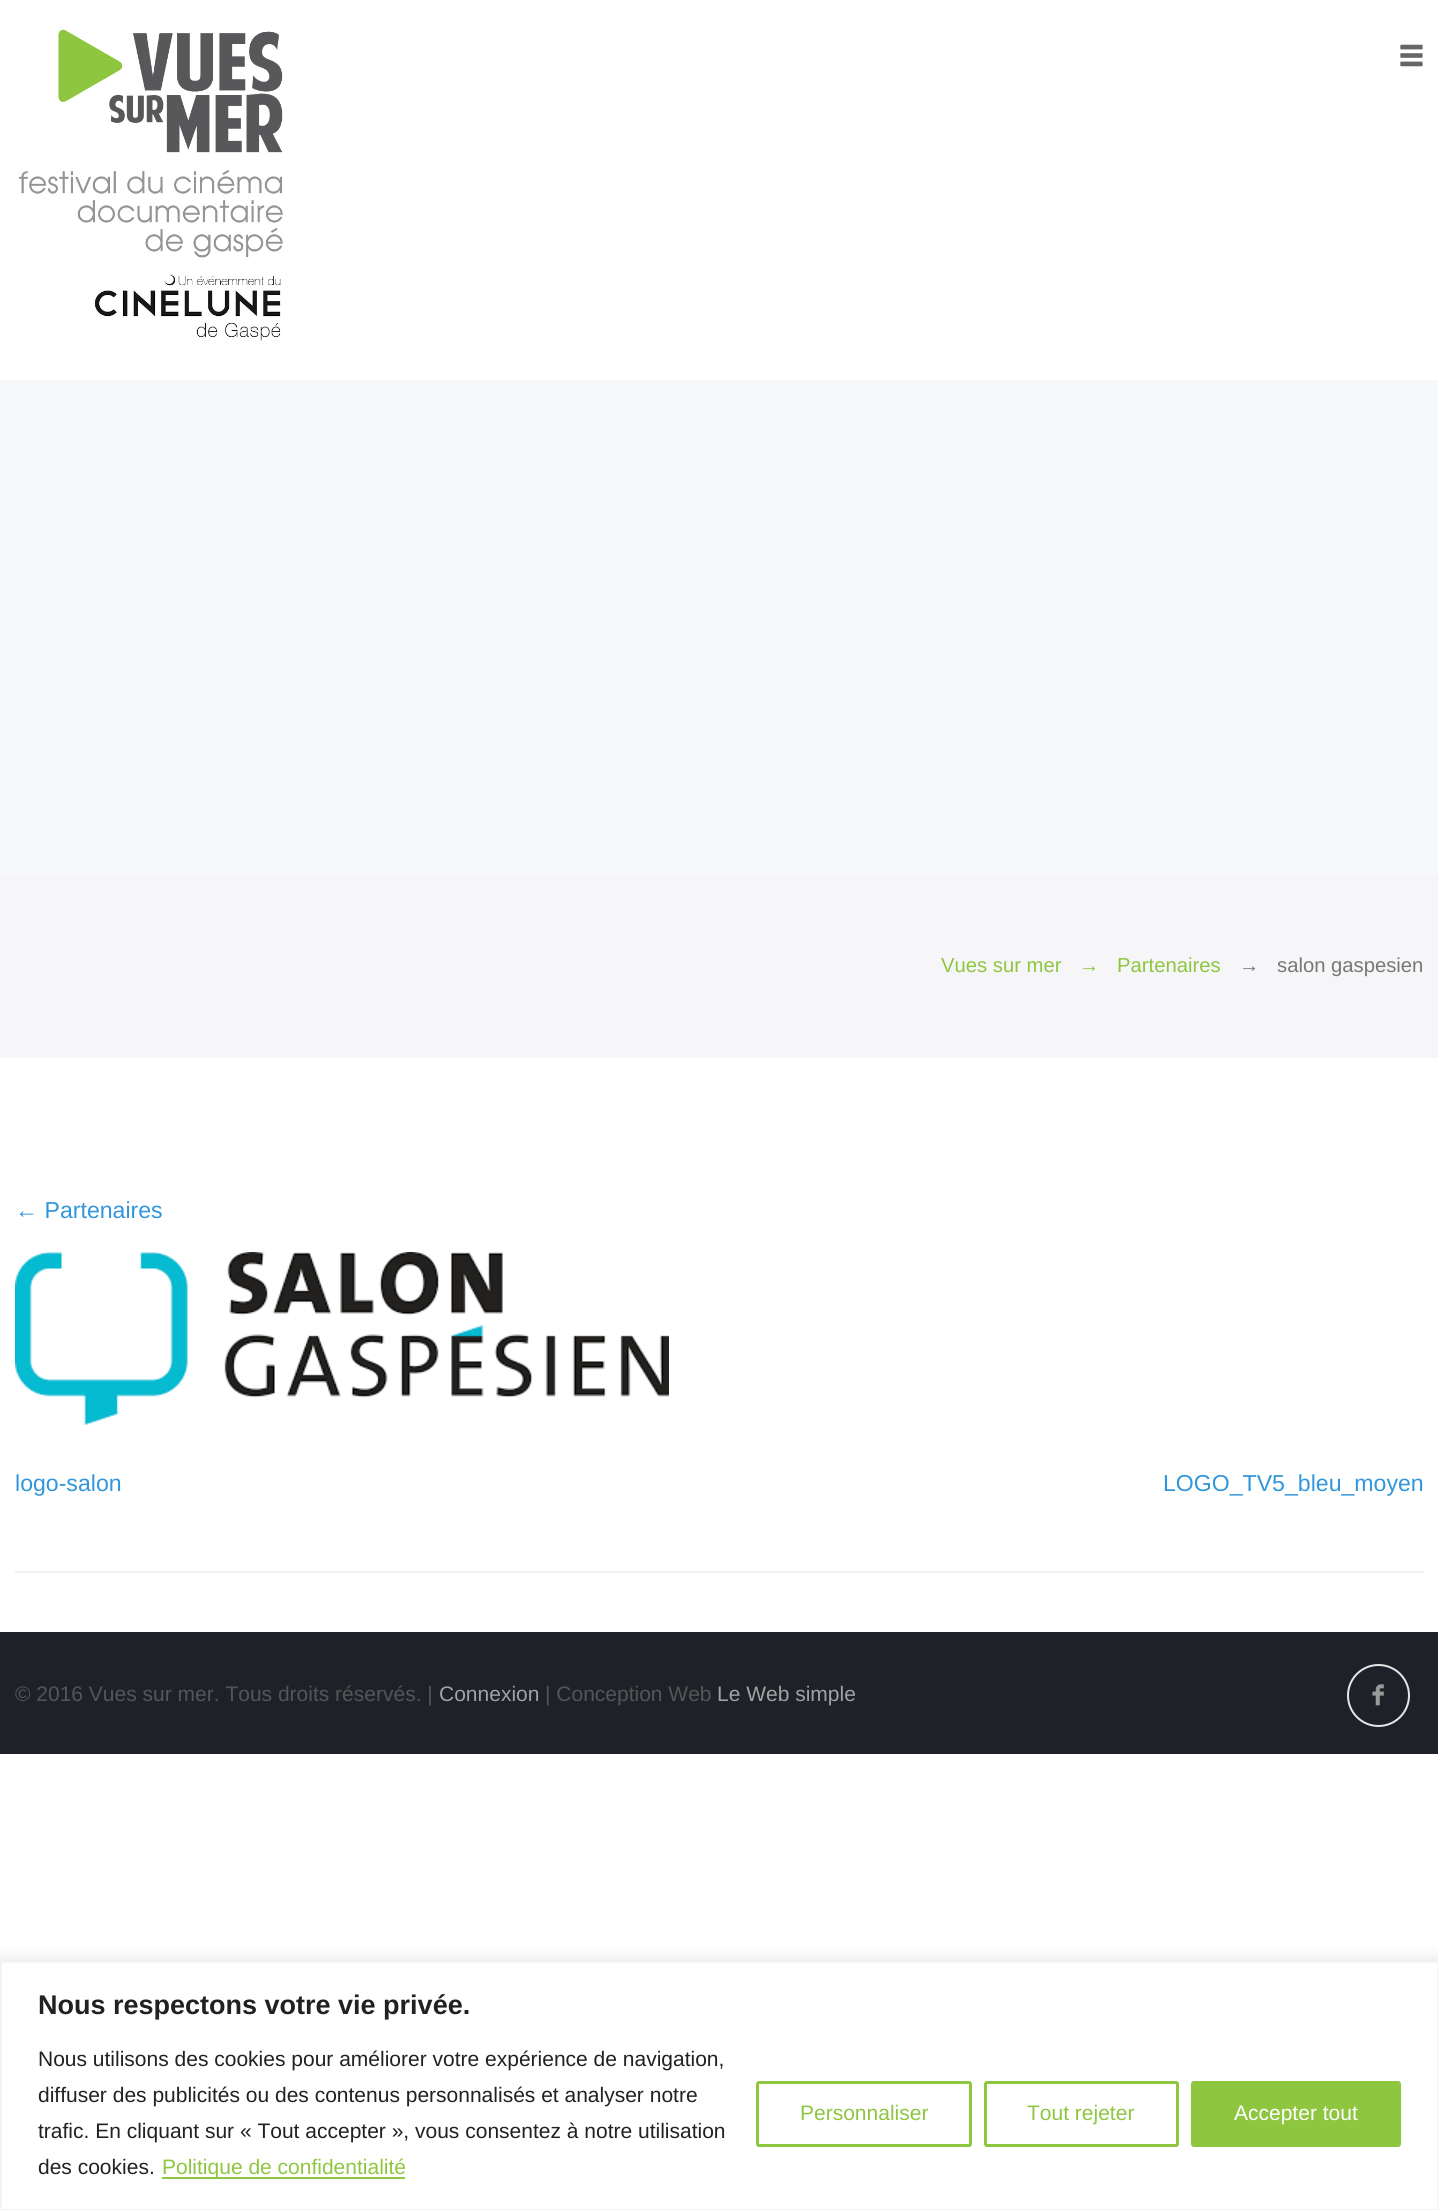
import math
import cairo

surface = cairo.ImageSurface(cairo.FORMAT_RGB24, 1438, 2210)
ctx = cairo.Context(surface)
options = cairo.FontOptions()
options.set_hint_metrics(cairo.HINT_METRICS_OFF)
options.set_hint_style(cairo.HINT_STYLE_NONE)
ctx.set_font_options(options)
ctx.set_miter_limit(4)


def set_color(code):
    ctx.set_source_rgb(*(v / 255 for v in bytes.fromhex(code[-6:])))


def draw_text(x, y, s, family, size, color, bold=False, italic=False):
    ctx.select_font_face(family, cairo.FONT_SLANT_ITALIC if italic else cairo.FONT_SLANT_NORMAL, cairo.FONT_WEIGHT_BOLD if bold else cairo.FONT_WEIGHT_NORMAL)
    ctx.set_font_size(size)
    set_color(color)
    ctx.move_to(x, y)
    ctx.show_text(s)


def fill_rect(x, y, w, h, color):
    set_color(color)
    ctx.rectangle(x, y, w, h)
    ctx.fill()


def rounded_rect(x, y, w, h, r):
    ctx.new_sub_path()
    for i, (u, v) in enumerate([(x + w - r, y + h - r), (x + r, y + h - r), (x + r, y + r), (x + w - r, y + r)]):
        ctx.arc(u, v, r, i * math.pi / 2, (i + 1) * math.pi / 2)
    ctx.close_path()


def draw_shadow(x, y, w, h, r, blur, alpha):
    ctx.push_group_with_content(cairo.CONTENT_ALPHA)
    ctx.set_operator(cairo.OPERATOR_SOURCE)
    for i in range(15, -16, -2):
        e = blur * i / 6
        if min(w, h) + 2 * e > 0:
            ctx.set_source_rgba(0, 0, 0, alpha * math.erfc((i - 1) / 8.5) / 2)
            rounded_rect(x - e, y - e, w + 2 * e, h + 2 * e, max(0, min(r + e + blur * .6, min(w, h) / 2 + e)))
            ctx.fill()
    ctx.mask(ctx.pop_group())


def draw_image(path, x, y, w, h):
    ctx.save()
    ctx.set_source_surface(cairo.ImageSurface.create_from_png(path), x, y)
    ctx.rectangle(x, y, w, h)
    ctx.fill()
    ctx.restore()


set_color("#ffffff")
ctx.paint()
draw_image("assets/img1.png", 19, 29, 264, 312)
draw_image("assets/img2.png", 1400, 44, 23, 23)
fill_rect(0, 380, 1438, 495, "#f7f8fa")
fill_rect(0, 875, 1438, 183, "#f6f6f8")
draw_text(941, 972, "Vues sur mer", "Liberation Sans", 20.25, "#8ec63f")
draw_text(1079, 972, "→", "Liberation Sans", 20.25, "#8ec63f")
draw_text(1117, 972, "Partenaires", "Liberation Sans", 20.25, "#8ec63f")
draw_text(1239, 972, "→", "Liberation Sans", 20.25, "#777777")
draw_text(1277, 972, "salon gaspesien", "Liberation Sans", 20.25, "#777777")
fill_rect(15, 1571, 1409, 2, "#f0f0f0")
draw_text(15, 1218, "← Partenaires", "Liberation Sans", 23.1, "#3296dc")
draw_image("assets/img3.png", 15, 1252, 654, 173)
draw_text(15, 1491, "logo-salon", "Liberation Sans", 23.1, "#3296dc")
draw_text(1163, 1491, "LOGO_TV5_bleu_moyen", "Liberation Sans", 23.1, "#3296dc")
fill_rect(0, 1632, 1438, 122, "#1e2128")
draw_text(15, 1701, "© 2016 Vues sur mer. Tous droits réservés. |", "Liberation Sans", 21, "#555555")
draw_text(439, 1701, "Connexion", "Liberation Sans", 21, "#a2a2a2")
draw_text(545, 1701, "| Conception Web", "Liberation Sans", 21, "#555555")
draw_text(717, 1701, "Le Web simple", "Liberation Sans", 21, "#a2a2a2")
ctx.new_path()
ctx.arc(1378.5, 1695.5, 30.5, 0, 2 * math.pi)
set_color("#e5e5e5")
ctx.stroke()
draw_image("assets/img4.png", 1372, 1684, 12, 22)
set_color("#acabab")
draw_shadow(0, 1959, 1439, 251, 0, 7.5, 0.3)
set_color("#ffffff")
ctx.rectangle(1, 1962, 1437, 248)
ctx.fill_preserve()
set_color("#f4f4f4")
ctx.stroke()
draw_text(38, 2014, "Nous respectons votre vie privée.", "Liberation Sans", 27, "#212121", bold=True)
draw_text(38, 2066, "Nous utilisons des cookies pour améliorer votre expérience de navigation,", "Liberation Sans", 21, "#212121")
draw_text(38, 2102, "diffuser des publicités ou des contenus personnalisés et analyser notre", "Liberation Sans", 21, "#212121")
draw_text(38, 2138, "trafic. En cliquant sur « Tout accepter », vous consentez à notre utilisation", "Liberation Sans", 21, "#212121")
draw_text(38, 2174, "des cookies.", "Liberation Sans", 21, "#212121")
fill_rect(162, 2177, 243, 2, "#8ec63f")
draw_text(162, 2174, "Politique de confidentialité", "Liberation Sans", 21, "#8ec63f")
rounded_rect(757.5, 2082.5, 213, 63, 1.5)
ctx.set_line_width(3)
ctx.stroke()
draw_text(800, 2120, "Personnaliser", "Liberation Sans", 21, "#8ec63f")
rounded_rect(985.5, 2082.5, 192, 63, 1.5)
ctx.stroke()
draw_text(1027, 2120, "Tout rejeter", "Liberation Sans", 21, "#8ec63f")
rounded_rect(1192.5, 2082.5, 207, 63, 1.5)
ctx.fill_preserve()
ctx.stroke()
draw_text(1234, 2120, "Accepter tout", "Liberation Sans", 21, "#ffffff")
surface.write_to_png("output.png")
